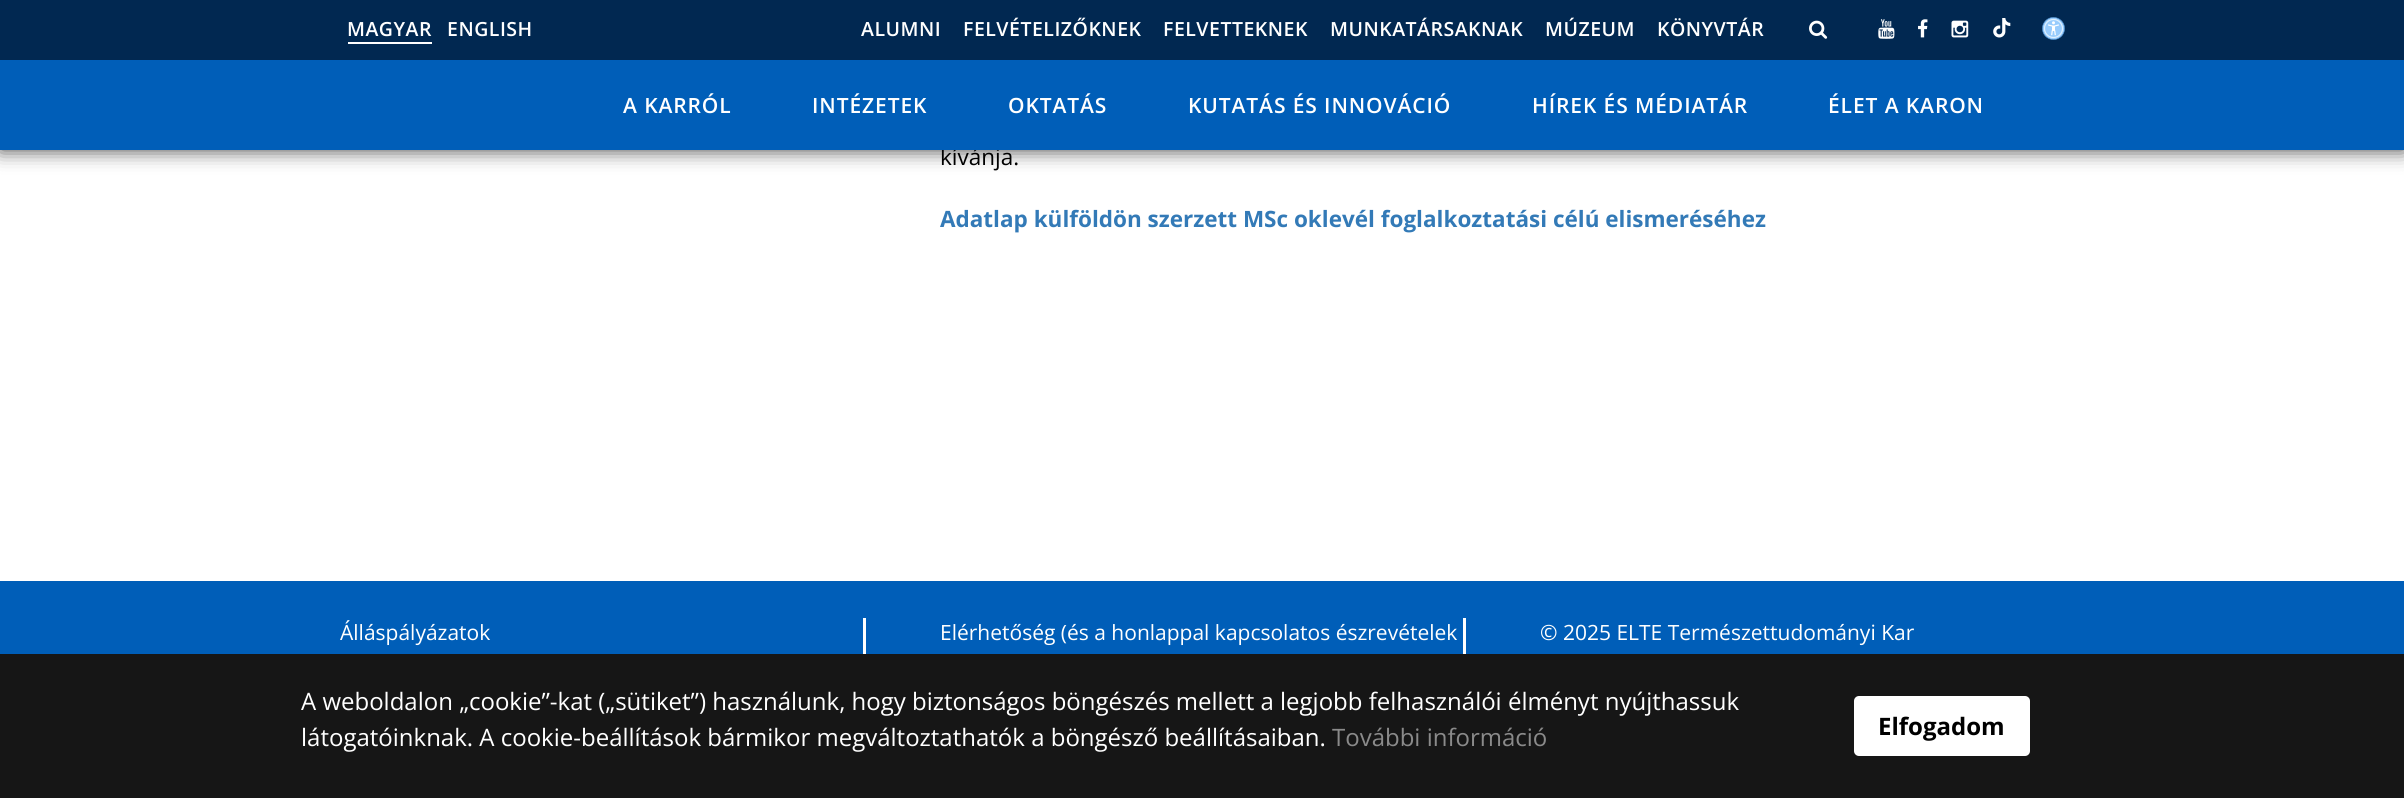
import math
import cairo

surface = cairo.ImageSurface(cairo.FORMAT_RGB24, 2404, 798)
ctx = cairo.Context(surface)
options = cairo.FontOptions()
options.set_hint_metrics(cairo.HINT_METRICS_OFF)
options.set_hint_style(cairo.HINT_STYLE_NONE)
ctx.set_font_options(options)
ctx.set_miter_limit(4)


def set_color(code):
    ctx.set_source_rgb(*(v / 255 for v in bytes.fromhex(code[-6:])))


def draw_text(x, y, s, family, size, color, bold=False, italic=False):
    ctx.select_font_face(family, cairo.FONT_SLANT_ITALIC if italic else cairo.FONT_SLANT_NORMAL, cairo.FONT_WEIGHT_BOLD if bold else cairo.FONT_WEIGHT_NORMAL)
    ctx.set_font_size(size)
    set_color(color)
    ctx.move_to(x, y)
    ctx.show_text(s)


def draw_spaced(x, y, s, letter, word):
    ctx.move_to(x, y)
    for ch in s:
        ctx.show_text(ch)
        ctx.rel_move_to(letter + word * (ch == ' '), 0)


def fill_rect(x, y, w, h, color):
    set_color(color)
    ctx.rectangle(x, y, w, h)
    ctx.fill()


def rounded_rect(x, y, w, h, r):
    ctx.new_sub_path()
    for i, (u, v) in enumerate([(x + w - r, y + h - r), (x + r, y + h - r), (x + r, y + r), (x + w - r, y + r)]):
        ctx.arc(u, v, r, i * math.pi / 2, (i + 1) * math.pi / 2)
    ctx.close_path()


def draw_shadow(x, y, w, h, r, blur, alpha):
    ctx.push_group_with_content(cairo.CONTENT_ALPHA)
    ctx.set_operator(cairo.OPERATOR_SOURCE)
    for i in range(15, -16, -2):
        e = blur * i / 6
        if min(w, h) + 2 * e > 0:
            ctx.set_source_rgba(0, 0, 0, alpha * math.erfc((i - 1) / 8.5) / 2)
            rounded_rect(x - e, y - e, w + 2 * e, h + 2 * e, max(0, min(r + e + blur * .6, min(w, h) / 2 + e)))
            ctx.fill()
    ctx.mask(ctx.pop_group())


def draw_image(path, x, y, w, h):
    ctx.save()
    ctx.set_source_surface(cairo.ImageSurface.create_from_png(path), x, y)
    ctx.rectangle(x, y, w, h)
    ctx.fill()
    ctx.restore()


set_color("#ffffff")
ctx.paint()
set_color("#000000")
draw_shadow(0, 0, 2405, 150, 0, 10, 0.75)
fill_rect(0, 0, 2404, 60, "#012851")
ctx.select_font_face("Open Sans SemiBold")
ctx.set_font_size(19.5)
set_color("#ffffff")
draw_spaced(347, 36, "MAGYAR", 0.5, 0)
fill_rect(348, 42, 84, 2, "#ffffff")
draw_spaced(447, 36, "ENGLISH", 0.5, 0)
draw_spaced(861, 36, "ALUMNI", 0.5, 0)
draw_spaced(963, 36, "FELVÉTELIZŐKNEK", 0.5, 0)
draw_spaced(1163, 36, "FELVETTEKNEK", 0.5, 0)
draw_spaced(1330, 36, "MUNKATÁRSAKNAK", 0.5, 0)
draw_spaced(1545, 36, "MÚZEUM", 0.5, 0)
draw_spaced(1657, 36, "KÖNYVTÁR", 0.5, 0)
draw_image("assets/img1.png", 1809, 20, 19, 19)
draw_image("assets/img2.png", 1878, 19, 17, 20)
draw_image("assets/img3.png", 1918, 19, 10, 19)
draw_image("assets/img4.png", 1951, 20, 18, 18)
draw_image("assets/img5.png", 1993, 18, 18, 20)
draw_image("assets/img6.png", 2042, 17, 23, 23)
draw_text(940, 165, "kívánja.", "Open Sans", 22.5, "#000000")
fill_rect(0, 60, 2404, 90, "#005eb8")
ctx.select_font_face("Open Sans SemiBold")
ctx.set_font_size(21)
set_color("#ffffff")
draw_spaced(623, 113, "A KARRÓL", 0.9, 0)
draw_spaced(812, 113, "INTÉZETEK", 0.9, 0)
draw_spaced(1008, 113, "OKTATÁS", 0.9, 0)
draw_spaced(1188, 113, "KUTATÁS ÉS INNOVÁCIÓ", 0.9, 0)
draw_spaced(1532, 113, "HÍREK ÉS MÉDIATÁR", 0.9, 0)
draw_spaced(1828, 113, "ÉLET A KARON", 0.9, 0)
draw_text(940, 227, "Adatlap külföldön szerzett MSc oklevél foglalkoztatási célú elismeréséhez", "Open Sans", 22.5, "#337ab7", bold=True)
fill_rect(0, 581, 2404, 73, "#005eb8")
draw_text(340, 640, "Álláspályázatok", "Open Sans", 21, "#ffffff")
fill_rect(863, 618, 3, 36, "#ffffff")
draw_text(940, 640, "Elérhetőség (és a honlappal kapcsolatos észrevételek", "Open Sans", 21, "#ffffff")
fill_rect(1463, 618, 3, 36, "#ffffff")
draw_text(1540, 640, "© 2025 ELTE Természettudományi Kar", "Open Sans", 21, "#ffffff")
fill_rect(0, 654, 2404, 144, "#161616")
draw_text(301, 710, "A weboldalon „cookie”-kat („sütiket”) használunk, hogy biztonságos böngészés mellett a legjobb felhasználói élményt nyújthassuk", "Open Sans", 24, "#ffffff")
draw_text(301, 746, "látogatóinknak. A cookie-beállítások bármikor megváltoztathatók a böngésző beállításaiban.", "Open Sans", 24, "#ffffff")
draw_text(1332, 746, "További információ", "Open Sans", 24, "#8a8a8a")
set_color("#ffffff")
rounded_rect(1854, 696, 176, 60, 5)
ctx.fill()
draw_text(1878, 735, "Elfogadom", "Open Sans", 24, "#000000", bold=True)
surface.write_to_png("output.png")
